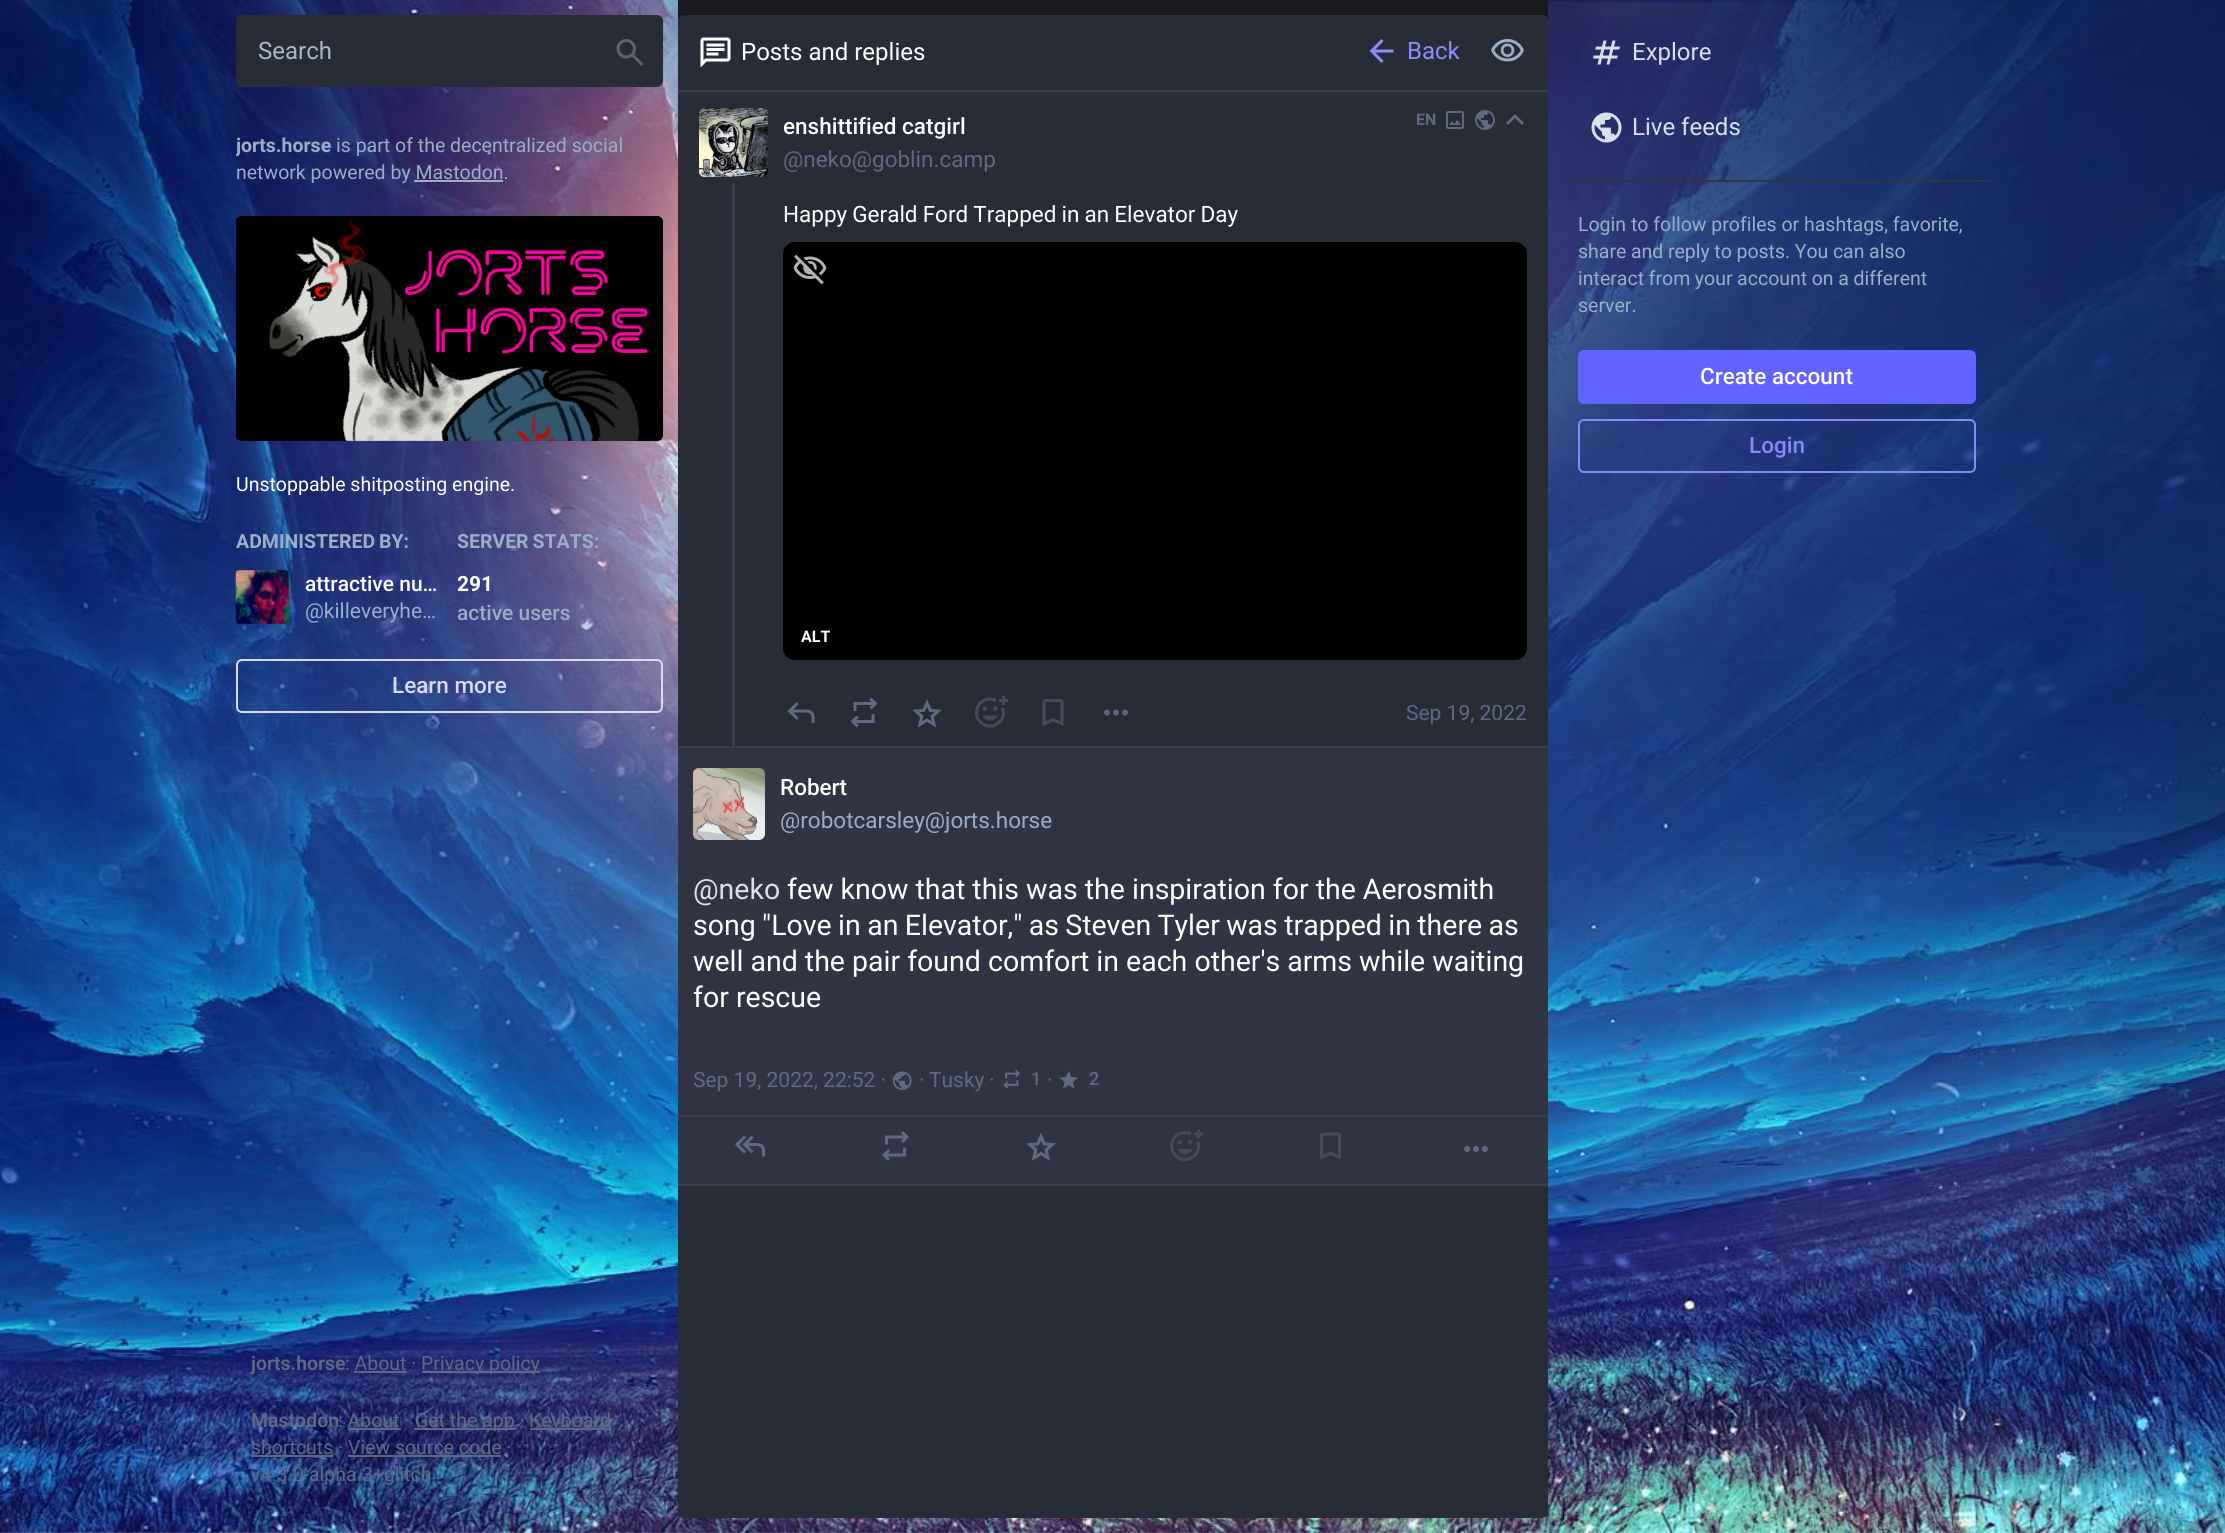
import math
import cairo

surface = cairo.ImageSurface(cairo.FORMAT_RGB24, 2225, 1533)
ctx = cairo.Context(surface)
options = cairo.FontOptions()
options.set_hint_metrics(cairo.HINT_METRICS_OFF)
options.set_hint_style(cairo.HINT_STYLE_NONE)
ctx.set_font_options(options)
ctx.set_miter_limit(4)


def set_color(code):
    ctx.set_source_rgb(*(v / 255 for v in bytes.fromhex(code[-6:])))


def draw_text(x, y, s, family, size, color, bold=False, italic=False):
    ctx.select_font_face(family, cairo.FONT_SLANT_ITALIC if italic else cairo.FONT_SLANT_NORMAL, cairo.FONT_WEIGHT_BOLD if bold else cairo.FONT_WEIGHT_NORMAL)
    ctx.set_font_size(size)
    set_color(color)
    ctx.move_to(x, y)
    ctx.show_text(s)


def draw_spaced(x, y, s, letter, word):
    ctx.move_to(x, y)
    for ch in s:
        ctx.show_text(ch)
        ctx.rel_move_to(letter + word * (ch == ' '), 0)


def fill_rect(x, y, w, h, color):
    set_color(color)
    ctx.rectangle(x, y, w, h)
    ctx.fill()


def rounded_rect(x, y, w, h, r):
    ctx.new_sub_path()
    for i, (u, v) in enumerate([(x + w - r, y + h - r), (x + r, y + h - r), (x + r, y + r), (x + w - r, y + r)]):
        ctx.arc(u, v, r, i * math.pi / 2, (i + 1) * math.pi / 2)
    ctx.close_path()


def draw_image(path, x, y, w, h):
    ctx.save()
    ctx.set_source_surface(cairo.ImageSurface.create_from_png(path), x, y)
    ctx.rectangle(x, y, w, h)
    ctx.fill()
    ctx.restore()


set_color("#ffffff")
ctx.paint()
draw_image("assets/img1.png", 0, 0, 2225, 1533)
set_color("#282c37")
rounded_rect(236, 15, 427, 72, 6)
ctx.fill()
draw_text(258, 59, "Search", "Roboto", 24, "#a8b9cf")
draw_image("assets/img2.png", 616, 39, 28, 27)
ctx.save()
ctx.rectangle(236, 15, 427, 1518)
ctx.clip()
draw_text(236, 152, "jorts.horse", "Roboto", 19.5, "#9baec8", bold=True)
ctx.restore()
draw_text(336, 152, "is part of the decentralized social", "Roboto", 19.5, "#9baec8")
draw_text(236, 179, "network powered by Mastodon.", "Roboto", 19.5, "#9baec8")
fill_rect(414, 180, 89, 2, "#9baec8")
set_color("#282c37")
rounded_rect(236, 216, 427, 225, 6)
ctx.fill()
draw_image("assets/img3.png", 236, 216, 427, 225)
draw_text(236, 491, "Unstoppable shitposting engine.", "Roboto", 19.5, "#ffffff")
ctx.select_font_face("Roboto", cairo.FONT_SLANT_NORMAL, cairo.FONT_WEIGHT_BOLD)
set_color("#9baec8")
draw_spaced(236, 548, "ADMINISTERED BY:", 0, -1)
draw_image("assets/img4.png", 235, 570, 55, 54)
draw_text(305, 591, "attractive nu…", "Roboto Medium", 21, "#ffffff")
draw_text(305, 618, "@killeveryhe…", "Roboto", 21, "#9baec8")
ctx.save()
ctx.rectangle(458, 528, 205, 99)
ctx.clip()
ctx.select_font_face("Roboto", cairo.FONT_SLANT_NORMAL, cairo.FONT_WEIGHT_BOLD)
ctx.set_font_size(19.5)
draw_spaced(457, 548, "SERVER STATS:", 0, -1)
draw_text(457, 591, "291", "Roboto", 21, "#ffffff", bold=True)
draw_text(457, 620, "active users", "Roboto Medium", 21, "#9baec8")
ctx.restore()
rounded_rect(237, 660, 425, 52, 5)
set_color("#dadaf3")
ctx.stroke()
draw_text(392, 693, "Learn more", "Roboto Medium", 22.5, "#dadaf3")
draw_text(251, 1370, "jorts.horse", "Roboto SemiBold", 19.5, "#606984")
draw_text(345, 1370, ": About ·", "Roboto", 19.5, "#606984")
fill_rect(422, 1371, 118, 2, "#606984")
draw_text(421, 1370, "Privacy policy", "Roboto", 19.5, "#606984")
fill_rect(354, 1371, 53, 2, "#606984")
draw_text(251, 1427, "Mastodon", "Roboto SemiBold", 19.5, "#606984")
draw_text(338, 1427, ": About ·", "Roboto", 19.5, "#606984")
fill_rect(414, 1428, 101, 2, "#606984")
draw_text(415, 1427, "Get the app ·", "Roboto", 19.5, "#606984")
fill_rect(530, 1428, 81, 2, "#606984")
draw_text(529, 1427, "Keyboard", "Roboto", 19.5, "#606984")
fill_rect(348, 1428, 53, 2, "#606984")
draw_text(251, 1454, "shortcuts", "Roboto", 19.5, "#606984")
fill_rect(251, 1455, 82, 2, "#606984")
draw_text(338, 1454, "· View source code ·", "Roboto", 19.5, "#606984")
fill_rect(348, 1455, 153, 2, "#606984")
draw_text(251, 1481, "v4.3.0-alpha.3+glitch", "Roboto", 19.5, "#606984")
fill_rect(678, 0, 870, 93, "#17191f")
set_color("#282c37")
ctx.new_path()
ctx.move_to(684, 15)
ctx.line_to(1542, 15)
ctx.curve_to(1545.5, 15, 1548, 17.5, 1548, 21)
ctx.line_to(1548, 92)
ctx.line_to(678, 92)
ctx.line_to(678, 21)
ctx.curve_to(678, 17.5, 680.5, 15, 684, 15)
ctx.close_path()
ctx.fill()
fill_rect(678, 90, 870, 2, "#393f4f")
draw_image("assets/img5.png", 700, 37, 31, 31)
draw_text(741, 60, "Posts and replies", "Roboto", 24, "#ffffff")
draw_image("assets/img6.png", 1369, 39, 25, 24)
draw_text(1407, 59, "Back", "Roboto", 24, "#8c8dff")
set_color("#282c37")
ctx.new_path()
ctx.move_to(1467, 15)
ctx.line_to(1542, 15)
ctx.curve_to(1545.5, 15, 1548, 17.5, 1548, 21)
ctx.line_to(1548, 87)
ctx.line_to(1467, 87)
ctx.close_path()
ctx.fill()
draw_image("assets/img7.png", 1491, 39, 33, 23)
ctx.new_path()
ctx.move_to(678, 93)
ctx.line_to(1548, 93)
ctx.line_to(1548, 1512)
ctx.curve_to(1548, 1515.5, 1545.5, 1518, 1542, 1518)
ctx.line_to(684, 1518)
ctx.curve_to(680.5, 1518, 678, 1515.5, 678, 1512)
ctx.close_path()
ctx.fill()
ctx.set_source_rgba(0.224, 0.247, 0.31, 0.5)
ctx.rectangle(678, 92, 870, 2)
ctx.fill()
draw_image("assets/img8.png", 699, 108, 69, 69)
draw_text(783, 134, "enshittified catgirl", "Roboto Medium", 22.5, "#ffffff")
draw_text(783, 167, "@neko@goblin.camp", "Roboto", 22.5, "#606984")
draw_text(1416, 125, "EN", "Roboto", 16, "#606984", bold=True)
draw_image("assets/img9.png", 1446, 111, 18, 18)
draw_image("assets/img10.png", 1475, 110, 20, 20)
ctx.new_path()
ctx.move_to(1508, 125)
ctx.line_to(1506, 123)
ctx.line_to(1515, 114)
ctx.line_to(1524, 123)
ctx.line_to(1522, 125)
ctx.line_to(1515, 118)
ctx.close_path()
ctx.fill()
fill_rect(732, 183, 3, 563, "#393f4f")
ctx.select_font_face("Roboto")
ctx.set_font_size(22.5)
set_color("#ffffff")
draw_spaced(783, 222, "Happy Gerald Ford Trapped in an Elevator Day", 0, -0.5)
set_color("#000000")
rounded_rect(783, 242, 744, 418, 12)
ctx.fill()
draw_image("assets/img11.png", 793, 254, 34, 31)
draw_text(801, 642, "ALT", "Roboto", 16, "#ffffff", bold=True)
draw_image("assets/img12.png", 787, 702, 28, 21)
draw_image("assets/img13.png", 850, 697, 28, 31)
draw_image("assets/img14.png", 912, 699, 30, 29)
draw_image("assets/img15.png", 975, 696, 33, 32)
draw_image("assets/img16.png", 1042, 699, 22, 27)
draw_image("assets/img17.png", 1104, 709, 24, 7)
draw_text(1406, 720, "Sep 19, 2022", "Roboto", 21, "#606984")
fill_rect(678, 748, 870, 367, "#313543")
fill_rect(678, 746, 870, 2, "#393f4f")
draw_image("assets/img18.png", 693, 768, 72, 72)
draw_text(780, 795, "Robert", "Roboto Medium", 22.5, "#ffffff")
draw_text(780, 828, "@robotcarsley@jorts.horse", "Roboto", 22.5, "#9baec8")
draw_text(693, 899, "@neko", "Roboto", 28.5, "#d9e1e8")
draw_text(787, 899, "few know that this was the inspiration for the Aerosmith", "Roboto", 28.5, "#ffffff")
draw_spaced(693, 935, "song \"Love in an Elevator,\" as Steven Tyler was trapped in there as", 0, -0.7)
draw_text(693, 971, "well and the pair found comfort in each other's arms while waiting", "Roboto", 28.5, "#ffffff")
draw_text(693, 1007, "for rescue", "Roboto", 28.5, "#ffffff")
draw_text(693, 1087, "Sep 19, 2022, 22:52 ·", "Roboto", 21, "#606984")
draw_image("assets/img19.png", 892, 1071, 20, 20)
draw_text(919, 1087, "·", "Roboto", 21, "#606984")
draw_text(929, 1087, "Tusky", "Roboto", 21, "#606984")
draw_text(989, 1087, "·", "Roboto", 21, "#606984")
draw_image("assets/img20.png", 1003, 1070, 17, 19)
draw_text(1031, 1085, "1", "Roboto Medium", 18, "#606984")
draw_text(1047, 1087, "·", "Roboto", 21, "#606984")
draw_image("assets/img21.png", 1059, 1071, 19, 18)
draw_text(1089, 1085, "2", "Roboto Medium", 18, "#606984")
fill_rect(678, 1117, 870, 67, "#313543")
fill_rect(678, 1115, 870, 2, "#393f4f")
fill_rect(678, 1184, 870, 2, "#393f4f")
draw_image("assets/img22.png", 735, 1135, 30, 22)
draw_image("assets/img23.png", 882, 1131, 27, 30)
draw_image("assets/img24.png", 1026, 1133, 30, 28)
draw_image("assets/img25.png", 1170, 1129, 33, 32)
draw_image("assets/img26.png", 1320, 1132, 21, 28)
draw_image("assets/img27.png", 1464, 1146, 24, 6)
draw_image("assets/img28.png", 1593, 40, 27, 25)
draw_text(1632, 60, "Explore", "Roboto", 24, "#d9e1e8")
draw_image("assets/img29.png", 1591, 112, 31, 31)
draw_text(1632, 135, "Live feeds", "Roboto", 24, "#d9e1e8")
fill_rect(1563, 180, 428, 2, "#313543")
draw_text(1578, 231, "Login to follow profiles or hashtags, favorite,", "Roboto", 19.5, "#9baec8")
draw_spaced(1578, 258, "share and reply to posts. You can also", 0, -0.25)
draw_spaced(1578, 285, "interact from your account on a different", 0, -0.25)
draw_text(1578, 312, "server.", "Roboto", 19.5, "#9baec8")
set_color("#6364ff")
rounded_rect(1578, 350, 398, 54, 6)
ctx.fill()
draw_text(1700, 384, "Create account", "Roboto Medium", 22.5, "#ffffff")
rounded_rect(1579, 420, 396, 52, 5)
set_color("#858afa")
ctx.stroke()
draw_text(1749, 453, "Login", "Roboto Medium", 22.5, "#858afa")
surface.write_to_png("output.png")
